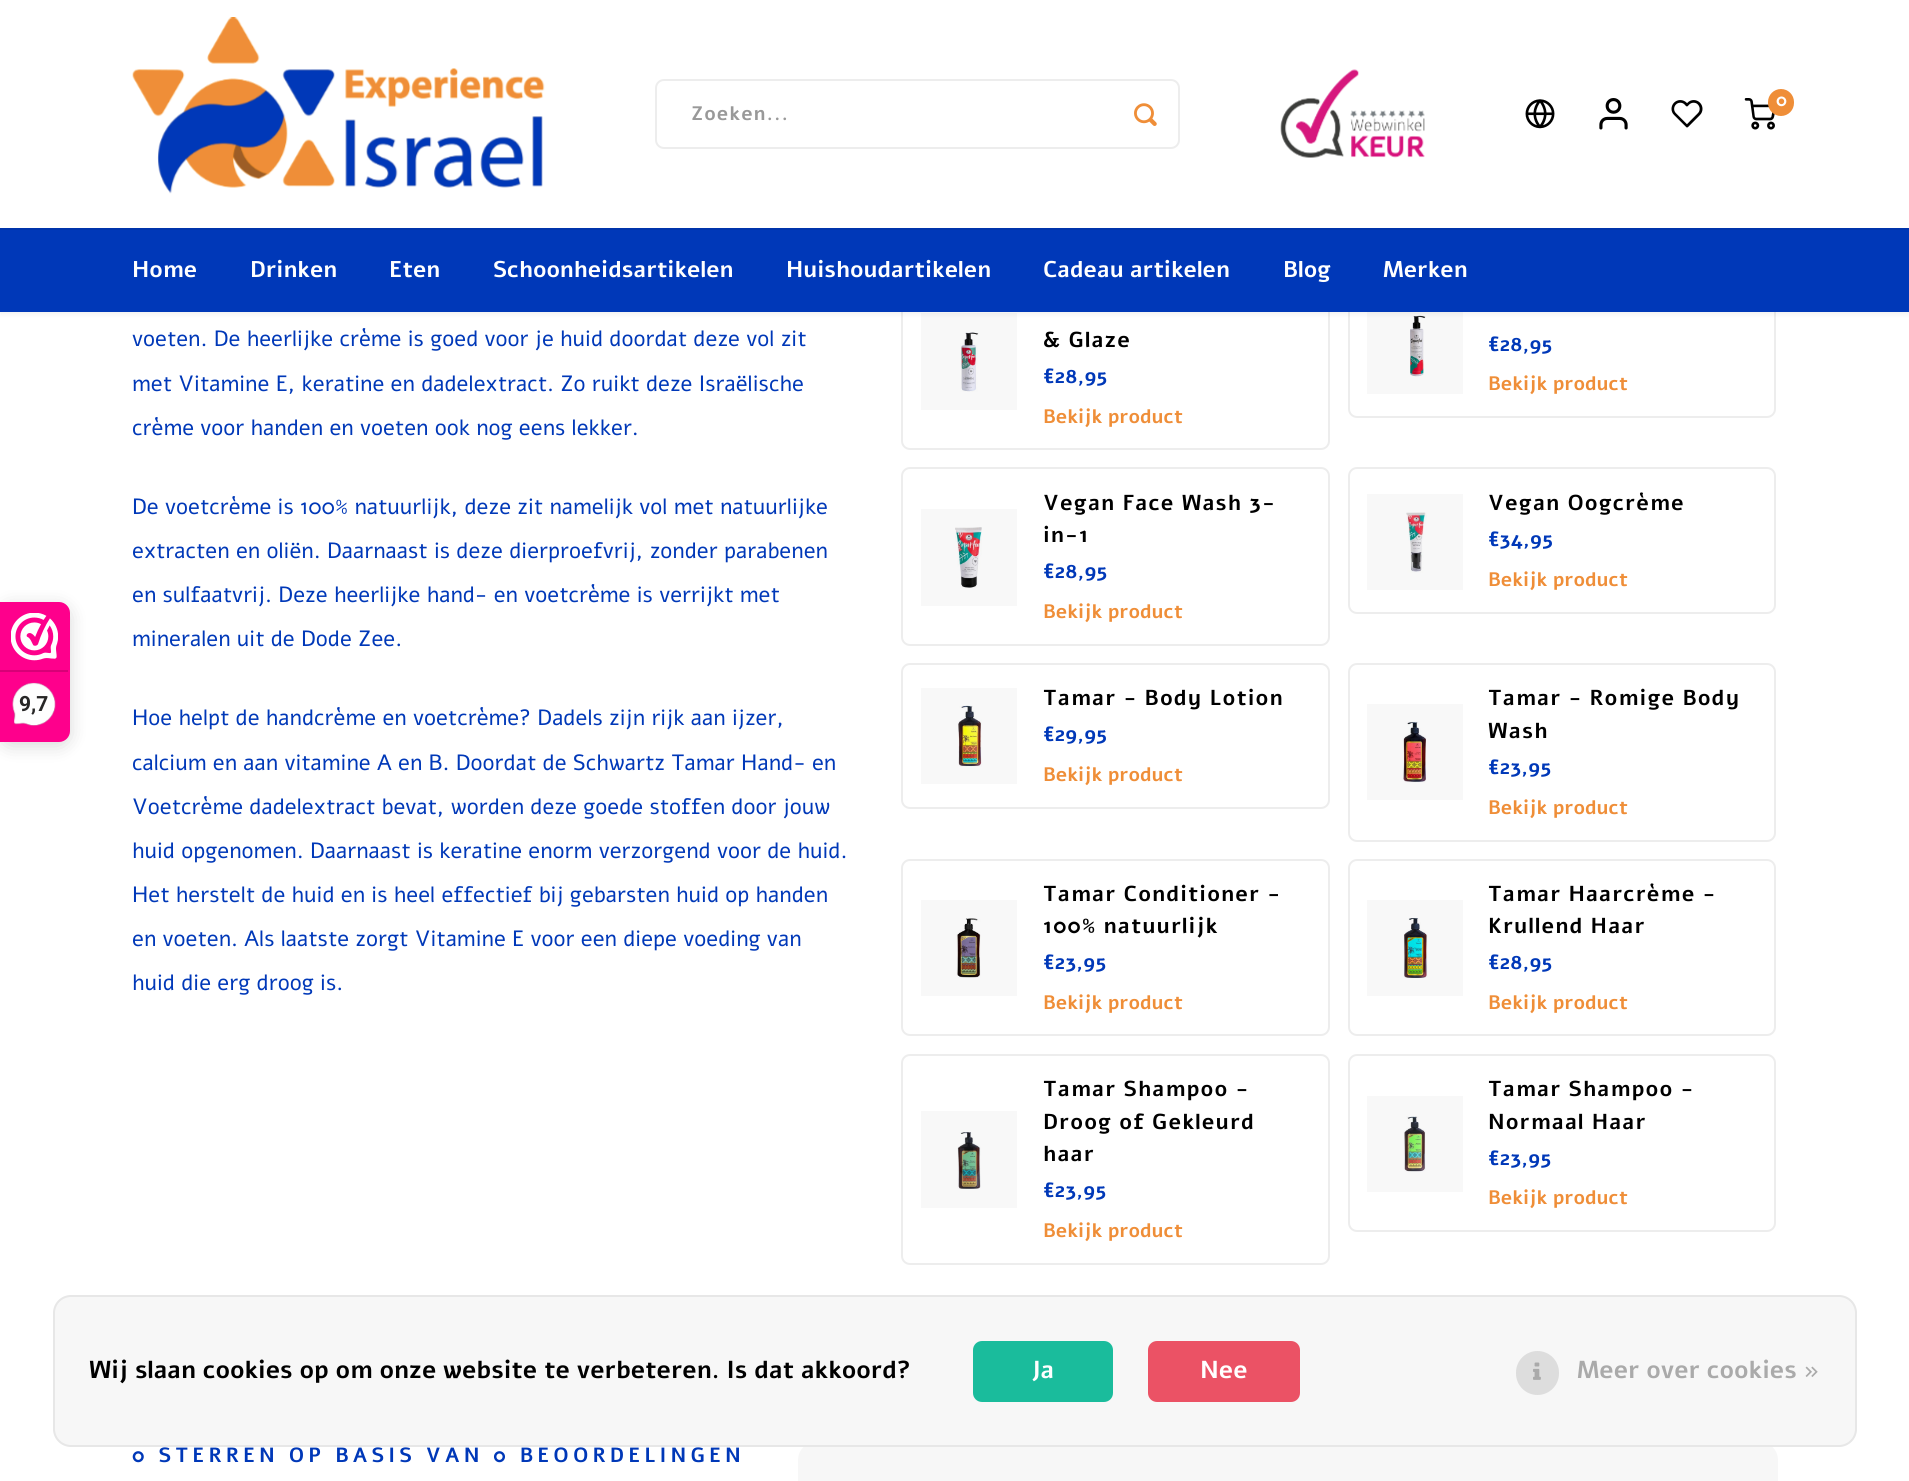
import math
import cairo

surface = cairo.ImageSurface(cairo.FORMAT_RGB24, 1909, 1481)
ctx = cairo.Context(surface)
options = cairo.FontOptions()
options.set_hint_metrics(cairo.HINT_METRICS_OFF)
options.set_hint_style(cairo.HINT_STYLE_NONE)
ctx.set_font_options(options)
ctx.set_miter_limit(4)


def set_color(code):
    ctx.set_source_rgb(*(v / 255 for v in bytes.fromhex(code[-6:])))


def draw_text(x, y, s, family, size, color, bold=False, italic=False):
    ctx.select_font_face(family, cairo.FONT_SLANT_ITALIC if italic else cairo.FONT_SLANT_NORMAL, cairo.FONT_WEIGHT_BOLD if bold else cairo.FONT_WEIGHT_NORMAL)
    ctx.set_font_size(size)
    set_color(color)
    ctx.move_to(x, y)
    ctx.show_text(s)


def draw_spaced(x, y, s, letter, word):
    ctx.move_to(x, y)
    for ch in s:
        ctx.show_text(ch)
        ctx.rel_move_to(letter + word * (ch == ' '), 0)


def fill_rect(x, y, w, h, color):
    set_color(color)
    ctx.rectangle(x, y, w, h)
    ctx.fill()


def rounded_rect(x, y, w, h, r):
    ctx.new_sub_path()
    for i, (u, v) in enumerate([(x + w - r, y + h - r), (x + r, y + h - r), (x + r, y + r), (x + w - r, y + r)]):
        ctx.arc(u, v, r, i * math.pi / 2, (i + 1) * math.pi / 2)
    ctx.close_path()


def draw_shadow(x, y, w, h, r, blur, alpha):
    ctx.push_group_with_content(cairo.CONTENT_ALPHA)
    ctx.set_operator(cairo.OPERATOR_SOURCE)
    for i in range(15, -16, -2):
        e = blur * i / 6
        if min(w, h) + 2 * e > 0:
            ctx.set_source_rgba(0, 0, 0, alpha * math.erfc((i - 1) / 8.5) / 2)
            rounded_rect(x - e, y - e, w + 2 * e, h + 2 * e, max(0, min(r + e + blur * .6, min(w, h) / 2 + e)))
            ctx.fill()
    ctx.mask(ctx.pop_group())


def draw_image(path, x, y, w, h):
    ctx.save()
    ctx.set_source_surface(cairo.ImageSurface.create_from_png(path), x, y)
    ctx.rectangle(x, y, w, h)
    ctx.fill()
    ctx.restore()


set_color("#ffffff")
ctx.paint()
rounded_rect(902, 274, 427, 175, 8)
set_color("#ededed")
ctx.stroke()
draw_image("assets/img10.png", 960, 332, 19, 60)
ctx.set_source_rgba(0, 0, 0, 0.03)
ctx.rectangle(921, 313, 96, 97)
ctx.fill()
rounded_rect(1349, 274, 426, 143, 8)
set_color("#ededed")
ctx.stroke()
draw_image("assets/img11.png", 1410, 315, 16, 62)
ctx.set_source_rgba(0, 0, 0, 0.03)
ctx.rectangle(1367, 312, 96, 82)
ctx.fill()
set_color("#000000")
draw_shadow(0, 2, 1909, 311, 0, 3.5, 0.08)
fill_rect(0, 0, 1909, 228, "#ffffff")
draw_image("assets/img1.png", 132, 17, 413, 177)
draw_image("assets/img2.png", 1280, 69, 145, 89)
draw_image("assets/img3.png", 1525, 99, 30, 30)
draw_image("assets/img4.png", 1599, 98, 29, 32)
draw_image("assets/img5.png", 1671, 100, 32, 28)
draw_image("assets/img6.png", 1744, 98, 31, 32)
set_color("#ef8e38")
rounded_rect(1768, 89, 26, 27, 13)
ctx.fill()
draw_text(1776, 106, "0", "Alef", 18, "#ffffff", bold=True)
rounded_rect(656, 80, 523, 68, 8)
set_color("#ededed")
ctx.stroke()
ctx.set_font_size(19.5)
set_color("#999999")
draw_spaced(691, 120, "Zoeken...", 1, 0)
draw_image("assets/img7.png", 1134, 103, 23, 23)
fill_rect(0, 230, 1909, 82, "#0038b8")
fill_rect(0, 228, 1909, 2, "#0034ab")
draw_text(132, 277, "Home", "Alef", 22.75, "#ffffff", bold=True)
draw_text(250, 277, "Drinken", "Alef", 22.75, "#ffffff", bold=True)
draw_text(389, 277, "Eten", "Alef", 22.75, "#ffffff", bold=True)
draw_text(493, 277, "Schoonheidsartikelen", "Alef", 22.75, "#ffffff", bold=True)
draw_text(786, 277, "Huishoudartikelen", "Alef", 22.75, "#ffffff", bold=True)
draw_text(1043, 277, "Cadeau artikelen", "Alef", 22.75, "#ffffff", bold=True)
draw_text(1283, 277, "Blog", "Alef", 22.75, "#ffffff", bold=True)
draw_text(1383, 277, "Merken", "Alef", 22.75, "#ffffff", bold=True)
set_color("#000000")
draw_shadow(0, 606, 70, 140, 11, 9, 0.15)
set_color("#fe008c")
ctx.new_path()
ctx.move_to(0, 602)
ctx.line_to(59, 602)
ctx.curve_to(65, 602, 70, 607, 70, 613)
ctx.line_to(70, 731)
ctx.curve_to(70, 737, 65, 742, 59, 742)
ctx.line_to(0, 742)
ctx.close_path()
ctx.fill()
draw_image("assets/img8.png", 11, 613, 47, 48)
fill_rect(0, 670, 68, 2, "#d80077")
draw_image("assets/img9.png", 12, 682, 44, 45)
draw_text(19, 711, "9,7", "Roboto", 21, "#272626", bold=True)
draw_text(132, 346, "voeten. De heerlijke crème is goed voor je huid doordat deze vol zit", "Alef", 22.1, "#0038b8")
draw_text(132, 391, "met Vitamine E, keratine en dadelextract. Zo ruikt deze Israëlische", "Alef", 22.1, "#0038b8")
draw_text(132, 435, "crème voor handen en voeten ook nog eens lekker.", "Alef", 22.1, "#0038b8")
draw_text(132, 514, "De voetcrème is 100% natuurlijk, deze zit namelijk vol met natuurlijke", "Alef", 22.1, "#0038b8")
draw_text(132, 558, "extracten en oliën. Daarnaast is deze dierproefvrij, zonder parabenen", "Alef", 22.1, "#0038b8")
draw_text(132, 602, "en sulfaatvrij. Deze heerlijke hand- en voetcrème is verrijkt met", "Alef", 22.1, "#0038b8")
draw_text(132, 646, "mineralen uit de Dode Zee.", "Alef", 22.1, "#0038b8")
draw_text(132, 725, "Hoe helpt de handcrème en voetcrème? Dadels zijn rijk aan ijzer,", "Alef", 22.1, "#0038b8")
draw_text(132, 770, "calcium en aan vitamine A en B. Doordat de Schwartz Tamar Hand- en", "Alef", 22.1, "#0038b8")
draw_text(132, 814, "Voetcrème dadelextract bevat, worden deze goede stoffen door jouw", "Alef", 22.1, "#0038b8")
draw_text(132, 858, "huid opgenomen. Daarnaast is keratine enorm verzorgend voor de huid.", "Alef", 22.1, "#0038b8")
draw_text(132, 902, "Het herstelt de huid en is heel effectief bij gebarsten huid op handen", "Alef", 22.1, "#0038b8")
draw_text(132, 946, "en voeten. Als laatste zorgt Vitamine E voor een diepe voeding van", "Alef", 22.1, "#0038b8")
draw_text(132, 990, "huid die erg droog is.", "Alef", 22.1, "#0038b8")
ctx.select_font_face("Alef", cairo.FONT_SLANT_NORMAL, cairo.FONT_WEIGHT_BOLD)
ctx.set_font_size(21.6)
set_color("#000000")
draw_spaced(1043, 347, "& Glaze", 1.1, 0)
draw_text(1043, 383, "€28,95", "Alef", 20.5, "#0038b8", bold=True)
draw_text(1043, 423, "Bekijk product", "Alef", 19.5, "#ef8e38", bold=True)
draw_text(1488, 351, "€28,95", "Alef", 20.5, "#0038b8", bold=True)
draw_text(1488, 390, "Bekijk product", "Alef", 19.5, "#ef8e38", bold=True)
rounded_rect(902, 468, 427, 177, 8)
set_color("#ededed")
ctx.stroke()
draw_image("assets/img12.png", 955, 527, 27, 61)
ctx.set_source_rgba(0, 0, 0, 0.03)
ctx.rectangle(921, 509, 96, 97)
ctx.fill()
ctx.set_font_size(21.6)
set_color("#000000")
draw_spaced(1043, 510, "Vegan Face Wash 3-", 1.1, 0)
draw_spaced(1043, 542, "in-1", 1.1, 0)
draw_text(1043, 578, "€28,95", "Alef", 20.5, "#0038b8", bold=True)
draw_text(1043, 618, "Bekijk product", "Alef", 19.5, "#ef8e38", bold=True)
rounded_rect(1349, 468, 426, 145, 8)
set_color("#ededed")
ctx.stroke()
draw_image("assets/img13.png", 1406, 512, 21, 61)
ctx.set_source_rgba(0, 0, 0, 0.03)
ctx.rectangle(1367, 494, 96, 96)
ctx.fill()
ctx.set_font_size(21.6)
set_color("#000000")
draw_spaced(1488, 510, "Vegan Oogcrème", 1.1, 0)
draw_text(1488, 546, "€34,95", "Alef", 20.5, "#0038b8", bold=True)
draw_text(1488, 586, "Bekijk product", "Alef", 19.5, "#ef8e38", bold=True)
rounded_rect(902, 664, 427, 144, 8)
set_color("#ededed")
ctx.stroke()
draw_image("assets/img14.png", 958, 705, 24, 62)
ctx.set_source_rgba(0, 0, 0, 0.03)
ctx.rectangle(921, 688, 96, 96)
ctx.fill()
ctx.set_font_size(21.6)
set_color("#000000")
draw_spaced(1043, 705, "Tamar - Body Lotion", 1.1, 0)
draw_text(1043, 741, "€29,95", "Alef", 20.5, "#0038b8", bold=True)
draw_text(1043, 781, "Bekijk product", "Alef", 19.5, "#ef8e38", bold=True)
rounded_rect(1349, 664, 426, 177, 8)
set_color("#ededed")
ctx.stroke()
draw_image("assets/img15.png", 1403, 721, 23, 62)
ctx.set_source_rgba(0, 0, 0, 0.03)
ctx.rectangle(1367, 704, 96, 96)
ctx.fill()
ctx.set_font_size(21.6)
set_color("#000000")
draw_spaced(1488, 705, "Tamar - Romige Body", 1.1, 0)
draw_spaced(1488, 738, "Wash", 1.1, 0)
draw_text(1488, 774, "€23,95", "Alef", 20.5, "#0038b8", bold=True)
draw_text(1488, 814, "Bekijk product", "Alef", 19.5, "#ef8e38", bold=True)
rounded_rect(902, 860, 427, 175, 8)
set_color("#ededed")
ctx.stroke()
draw_image("assets/img16.png", 956, 918, 25, 60)
ctx.set_source_rgba(0, 0, 0, 0.03)
ctx.rectangle(921, 900, 96, 96)
ctx.fill()
ctx.set_font_size(21.6)
set_color("#000000")
draw_spaced(1043, 901, "Tamar Conditioner -", 1.1, 0)
draw_spaced(1043, 933, "100% natuurlijk", 1.1, 0)
draw_text(1043, 969, "€23,95", "Alef", 20.5, "#0038b8", bold=True)
draw_text(1043, 1009, "Bekijk product", "Alef", 19.5, "#ef8e38", bold=True)
rounded_rect(1349, 860, 426, 175, 8)
set_color("#ededed")
ctx.stroke()
draw_image("assets/img17.png", 1404, 918, 24, 60)
ctx.set_source_rgba(0, 0, 0, 0.03)
ctx.rectangle(1367, 900, 96, 96)
ctx.fill()
ctx.set_font_size(21.6)
set_color("#000000")
draw_spaced(1488, 901, "Tamar Haarcrème -", 1.1, 0)
draw_spaced(1488, 933, "Krullend Haar", 1.1, 0)
draw_text(1488, 969, "€28,95", "Alef", 20.5, "#0038b8", bold=True)
draw_text(1488, 1009, "Bekijk product", "Alef", 19.5, "#ef8e38", bold=True)
rounded_rect(902, 1055, 427, 209, 8)
set_color("#ededed")
ctx.stroke()
draw_image("assets/img18.png", 957, 1132, 24, 57)
ctx.set_source_rgba(0, 0, 0, 0.03)
ctx.rectangle(921, 1111, 96, 97)
ctx.fill()
ctx.set_font_size(21.6)
set_color("#000000")
draw_spaced(1043, 1096, "Tamar Shampoo -", 1.1, 0)
draw_spaced(1043, 1129, "Droog of Gekleurd", 1.1, 0)
draw_spaced(1043, 1161, "haar", 1.1, 0)
draw_text(1043, 1197, "€23,95", "Alef", 20.5, "#0038b8", bold=True)
draw_text(1043, 1237, "Bekijk product", "Alef", 19.5, "#ef8e38", bold=True)
rounded_rect(1349, 1055, 426, 176, 8)
set_color("#ededed")
ctx.stroke()
draw_image("assets/img19.png", 1404, 1116, 22, 56)
ctx.set_source_rgba(0, 0, 0, 0.03)
ctx.rectangle(1367, 1096, 96, 96)
ctx.fill()
ctx.set_font_size(21.6)
set_color("#000000")
draw_spaced(1488, 1096, "Tamar Shampoo -", 1.1, 0)
draw_spaced(1488, 1129, "Normaal Haar", 1.1, 0)
draw_text(1488, 1165, "€23,95", "Alef", 20.5, "#0038b8", bold=True)
draw_text(1488, 1204, "Bekijk product", "Alef", 19.5, "#ef8e38", bold=True)
ctx.set_font_size(20.5)
set_color("#0038b8")
draw_spaced(132, 1462, "0 STERREN OP BASIS VAN 0 BEOORDELINGEN", 4.1, 0)
set_color("#f7f7f7")
rounded_rect(798, 1442, 980, 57, 18)
ctx.fill()
rounded_rect(53, 1295, 1804, 152, 18)
ctx.fill()
rounded_rect(54, 1296, 1802, 150, 17)
ctx.set_source_rgba(0, 0, 0, 0.07)
ctx.stroke()
draw_text(89, 1378, "Wij slaan cookies op om onze website te verbeteren. Is dat akkoord?", "Alef", 24.5, "#000000", bold=True)
set_color("#1abc9c")
rounded_rect(973, 1341, 140, 61, 9)
ctx.fill()
draw_text(1031, 1378, "Ja", "Alef", 24.5, "#ffffff", bold=True)
set_color("#eb5265")
rounded_rect(1148, 1341, 152, 61, 9)
ctx.fill()
draw_text(1200, 1378, "Nee", "Alef", 24.5, "#ffffff", bold=True)
set_color("#dddddd")
rounded_rect(1516, 1351, 43, 44, 21.5)
ctx.fill()
draw_image("assets/img20.png", 1533, 1362, 8, 18)
draw_text(1577, 1378, "Meer over cookies »", "Alef", 24.5, "#aaaaaa", bold=True)
surface.write_to_png("output.png")
